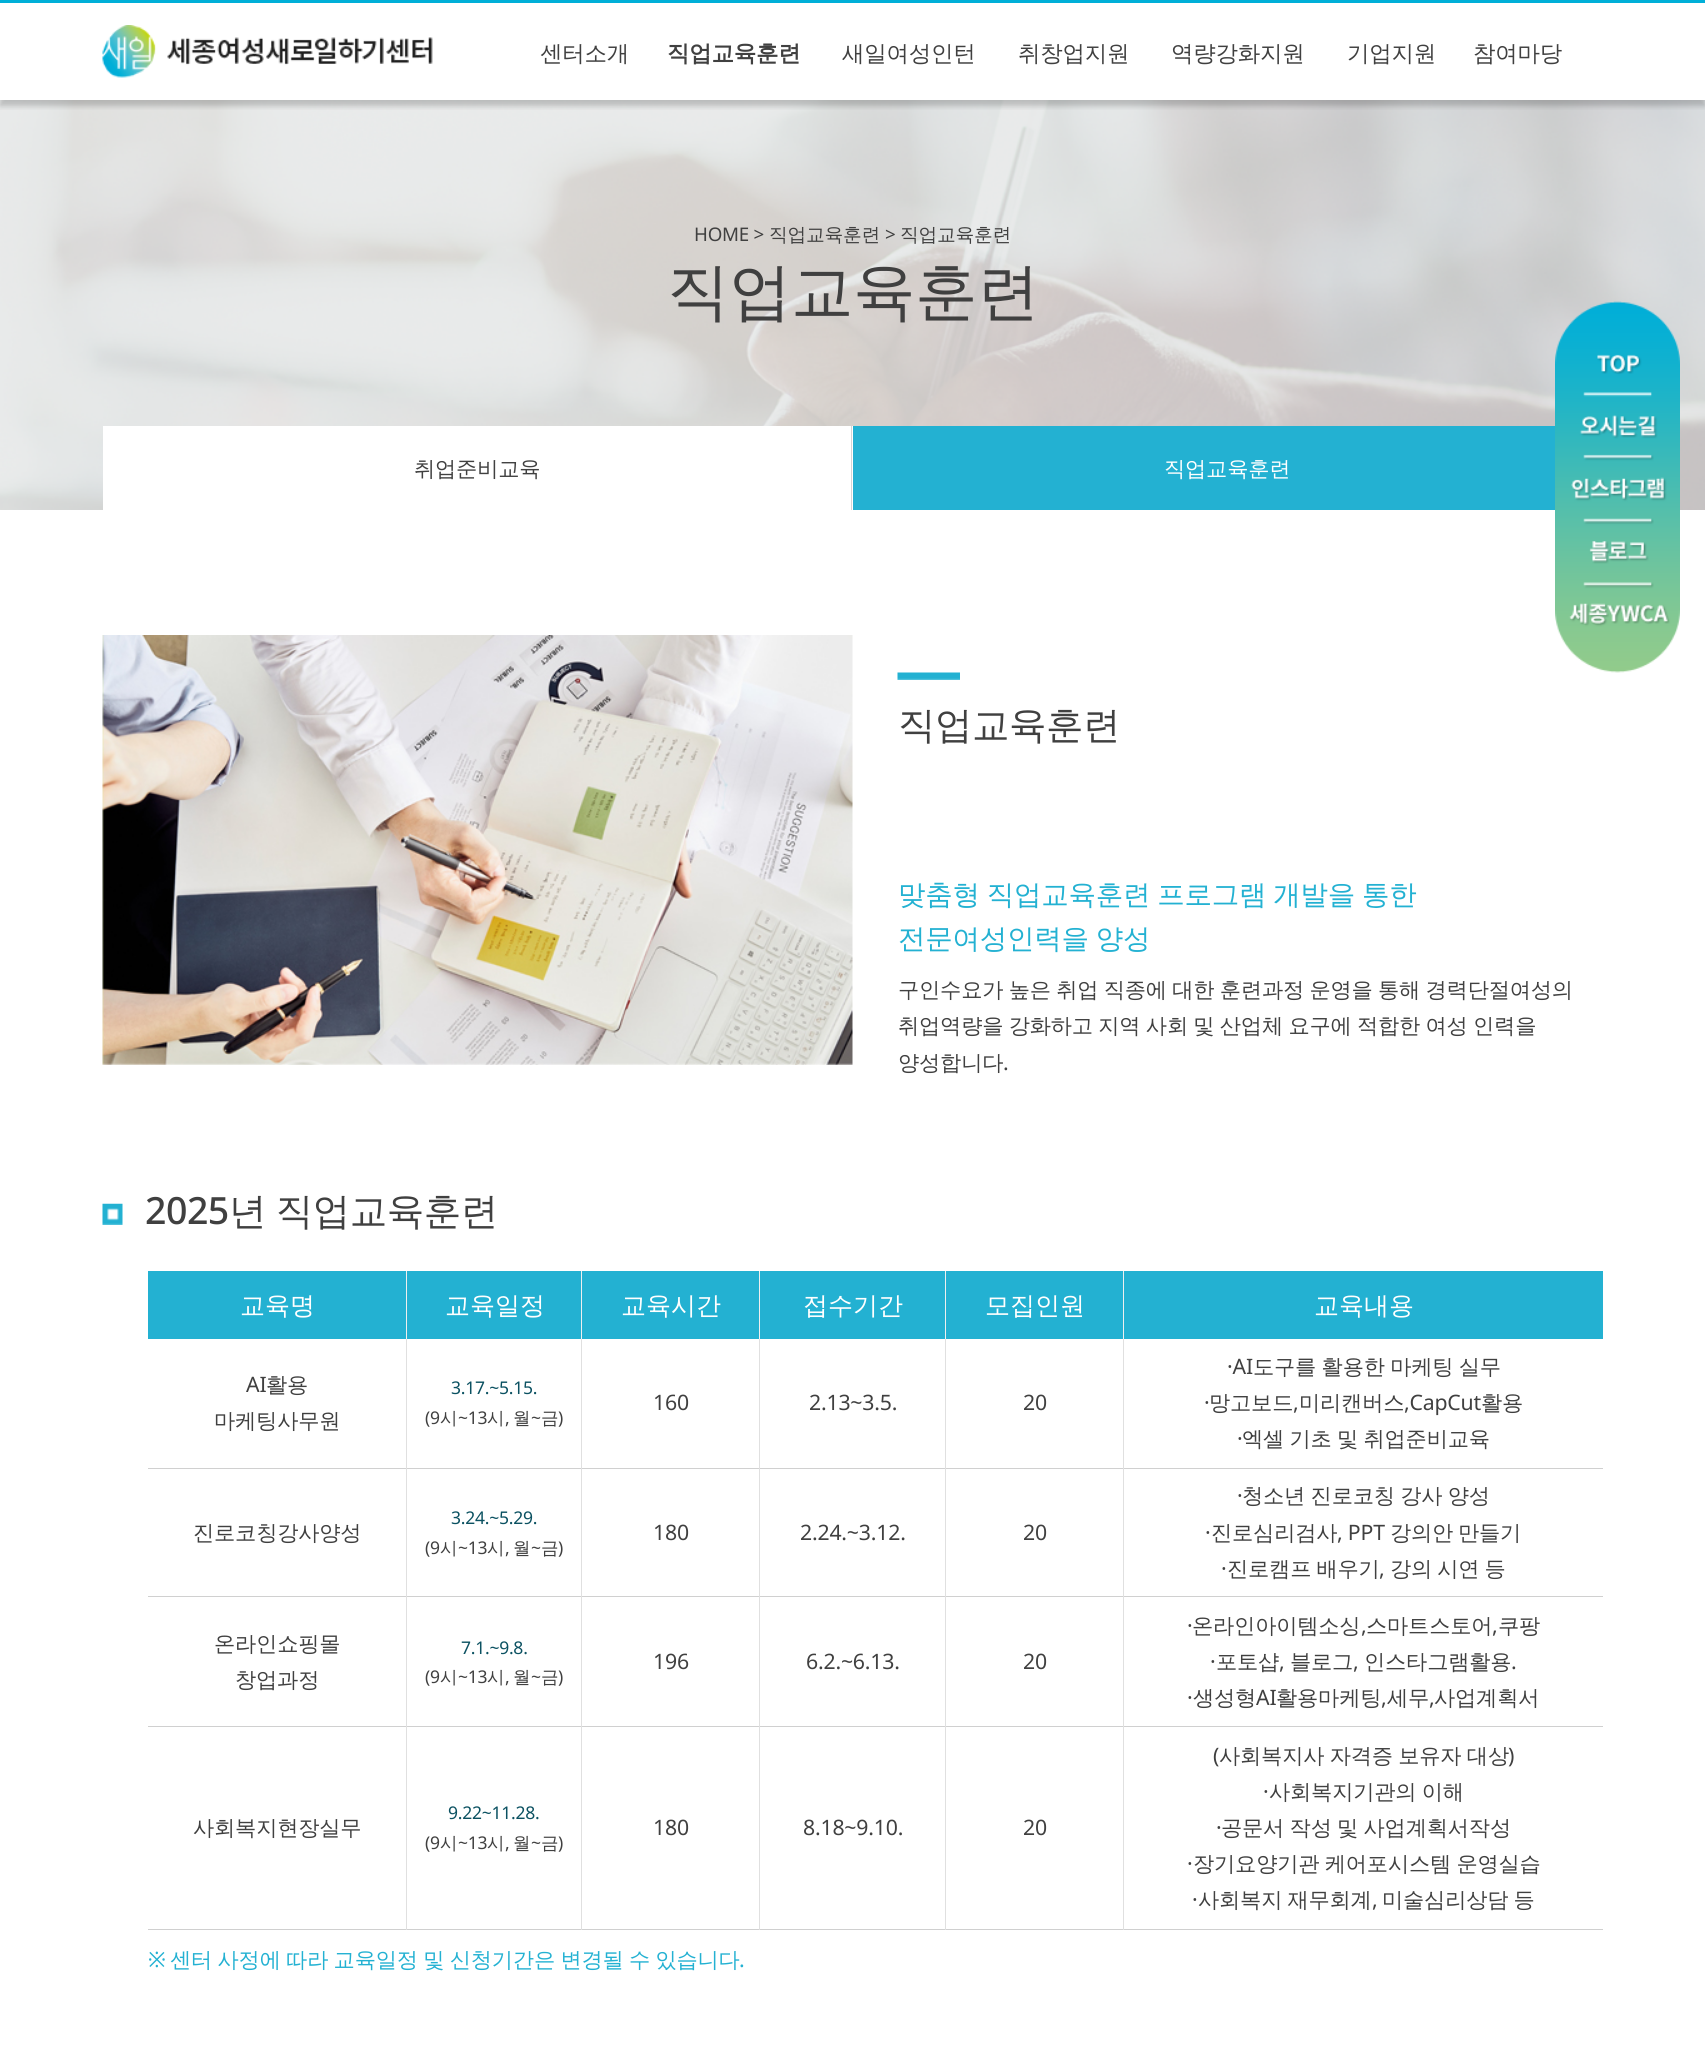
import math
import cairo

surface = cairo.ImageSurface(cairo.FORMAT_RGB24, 1705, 2060)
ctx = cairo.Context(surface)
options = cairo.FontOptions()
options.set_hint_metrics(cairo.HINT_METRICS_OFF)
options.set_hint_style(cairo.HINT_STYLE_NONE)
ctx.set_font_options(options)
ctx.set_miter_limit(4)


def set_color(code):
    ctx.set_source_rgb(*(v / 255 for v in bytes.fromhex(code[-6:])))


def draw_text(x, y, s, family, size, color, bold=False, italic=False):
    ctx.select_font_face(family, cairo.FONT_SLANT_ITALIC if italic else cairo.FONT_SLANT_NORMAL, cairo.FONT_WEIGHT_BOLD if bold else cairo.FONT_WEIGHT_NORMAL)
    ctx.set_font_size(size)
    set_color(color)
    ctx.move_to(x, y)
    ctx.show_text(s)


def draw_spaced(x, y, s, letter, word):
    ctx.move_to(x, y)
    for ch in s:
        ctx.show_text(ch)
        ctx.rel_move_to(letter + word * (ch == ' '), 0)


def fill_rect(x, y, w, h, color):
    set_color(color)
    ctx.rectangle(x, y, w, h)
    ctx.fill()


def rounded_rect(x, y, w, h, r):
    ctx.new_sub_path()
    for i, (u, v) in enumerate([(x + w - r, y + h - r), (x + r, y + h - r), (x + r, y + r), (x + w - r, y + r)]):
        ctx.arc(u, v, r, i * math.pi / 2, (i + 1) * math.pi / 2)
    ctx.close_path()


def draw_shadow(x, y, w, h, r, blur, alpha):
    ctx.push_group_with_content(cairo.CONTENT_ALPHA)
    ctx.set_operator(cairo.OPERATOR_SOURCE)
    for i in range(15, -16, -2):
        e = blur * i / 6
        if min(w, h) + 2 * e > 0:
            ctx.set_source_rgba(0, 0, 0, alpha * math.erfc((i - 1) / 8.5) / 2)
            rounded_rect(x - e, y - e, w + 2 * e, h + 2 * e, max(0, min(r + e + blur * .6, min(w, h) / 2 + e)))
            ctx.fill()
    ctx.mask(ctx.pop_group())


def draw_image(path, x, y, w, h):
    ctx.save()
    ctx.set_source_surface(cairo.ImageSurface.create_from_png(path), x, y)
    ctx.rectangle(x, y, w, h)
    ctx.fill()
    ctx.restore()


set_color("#ffffff")
ctx.paint()
draw_image("assets/img2.png", 0, 100, 1705, 410)
ctx.save()
ctx.rectangle(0, 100, 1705, 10)
ctx.clip()
set_color("#000000")
draw_shadow(0, 6, 1705, 100, 0, 3, 0.2)
ctx.restore()
fill_rect(0, 0, 1705, 3, "#00afd8")
draw_image("assets/img1.png", 102, 25, 331, 53)
ctx.select_font_face("WenQuanYi Zen Hei Medium")
ctx.set_font_size(22.5)
set_color("#404040")
draw_spaced(540, 61, "센터소개", -0.25, 0)
ctx.select_font_face("WenQuanYi Zen Hei", cairo.FONT_SLANT_NORMAL, cairo.FONT_WEIGHT_BOLD)
draw_spaced(667, 61, "직업교육훈련", -0.25, 0)
ctx.select_font_face("WenQuanYi Zen Hei Medium")
draw_spaced(842, 61, "새일여성인턴", -0.25, 0)
draw_spaced(1018, 61, "취창업지원", -0.25, 0)
draw_spaced(1171, 61, "역량강화지원", -0.25, 0)
draw_spaced(1347, 61, "기업지원", -0.25, 0)
draw_spaced(1473, 61, "참여마당", -0.25, 0)
ctx.select_font_face("Noto Sans")
ctx.set_font_size(18.75)
draw_spaced(694, 241, "HOME >", -0.25, 0)
ctx.select_font_face("WenQuanYi Zen Hei Medium")
draw_spaced(769, 241, "직업교육훈련", -0.25, 0)
ctx.select_font_face("Noto Sans")
draw_spaced(885, 241, ">", -0.25, 0)
ctx.select_font_face("WenQuanYi Zen Hei Medium")
draw_spaced(900, 241, "직업교육훈련", -0.25, 0)
ctx.set_font_size(62.5)
draw_spaced(667, 313, "직업교육훈련", -0.5, 0)
fill_rect(103, 426, 750, 84, "#ffffff")
fill_rect(851, 426, 1, 84, "#d5d5d5")
ctx.set_font_size(21.25)
set_color("#404040")
draw_spaced(414, 476, "취업준비교육", -0.2, 0)
fill_rect(853, 426, 702, 84, "#23b1d2")
set_color("#ffffff")
draw_spaced(1164, 476, "직업교육훈련", -0.2, 0)
draw_image("assets/img3.png", 102, 635, 751, 430)
draw_image("assets/img4.png", 897, 672, 63, 8)
ctx.set_font_size(37.5)
set_color("#404040")
draw_spaced(898, 738, "직업교육훈련", -0.5, 0)
ctx.set_font_size(27.5)
set_color("#23b1d2")
draw_spaced(898, 904, "맞춤형 직업교육훈련 프로그램 개발을 통한", -0.25, -1)
draw_spaced(898, 948, "전문여성인력을 양성", -0.25, -1)
ctx.set_font_size(21.25)
set_color("#404040")
draw_spaced(898, 997, "구인수요가 높은 취업 직종에 대한 훈련과정 운영을 통해 경력단절여성의", -0.2, -0.75)
draw_spaced(898, 1033, "취업역량을 강화하고 지역 사회 및 산업체 요구에 적합한 여성 인력을", -0.2, -0.75)
draw_spaced(898, 1070, "양성합니다", -0.2, 0)
ctx.select_font_face("Noto Sans")
draw_spaced(1003, 1070, ".", -0.2, 0)
draw_image("assets/img5.png", 102, 1203, 21, 22)
ctx.select_font_face("Noto Sans Medium")
ctx.set_font_size(37.5)
draw_spaced(145, 1224, "2025", -0.5, 0)
ctx.select_font_face("WenQuanYi Zen Hei Medium")
draw_spaced(229, 1224, "년 직업교육훈련", -0.5, -1)
fill_rect(148, 1271, 258, 68, "#23b1d2")
draw_text(240, 1314, "교육명", "WenQuanYi Zen Hei Medium", 25, "#ffffff")
fill_rect(407, 1271, 174, 68, "#23b1d2")
fill_rect(406, 1271, 1, 68, "#efefef")
draw_text(445, 1314, "교육일정", "WenQuanYi Zen Hei Medium", 25, "#ffffff")
fill_rect(582, 1271, 177, 68, "#23b1d2")
fill_rect(581, 1271, 1, 68, "#efefef")
draw_text(621, 1314, "교육시간", "WenQuanYi Zen Hei Medium", 25, "#ffffff")
fill_rect(760, 1271, 185, 68, "#23b1d2")
fill_rect(759, 1271, 1, 68, "#efefef")
draw_text(803, 1314, "접수기간", "WenQuanYi Zen Hei Medium", 25, "#ffffff")
fill_rect(946, 1271, 177, 68, "#23b1d2")
fill_rect(945, 1271, 1, 68, "#efefef")
draw_text(985, 1314, "모집인원", "WenQuanYi Zen Hei Medium", 25, "#ffffff")
fill_rect(1124, 1271, 479, 68, "#23b1d2")
fill_rect(1123, 1271, 1, 68, "#efefef")
draw_text(1314, 1314, "교육내용", "WenQuanYi Zen Hei Medium", 25, "#ffffff")
fill_rect(148, 1468, 1455, 1, "#d0d0d0")
ctx.select_font_face("Noto Sans")
ctx.set_font_size(21.25)
set_color("#404040")
draw_spaced(246, 1392, "AI", -0.2, 0)
ctx.select_font_face("WenQuanYi Zen Hei Medium")
draw_spaced(266, 1392, "활용", -0.2, 0)
draw_spaced(214, 1428, "마케팅사무원", -0.2, 0)
fill_rect(406, 1339, 1, 130, "#e0e0e0")
ctx.select_font_face("Noto Sans")
ctx.set_font_size(17.5)
set_color("#0b5161")
draw_spaced(451, 1394, "3.17.~5.15.", -0.25, 0)
set_color("#404040")
draw_spaced(425, 1424, "(9", -0.25, 0)
ctx.select_font_face("WenQuanYi Zen Hei Medium")
draw_spaced(440, 1424, "시", -0.25, 0)
ctx.select_font_face("Noto Sans")
draw_spaced(458, 1424, "~13", -0.25, 0)
ctx.select_font_face("WenQuanYi Zen Hei Medium")
draw_spaced(487, 1424, "시", -0.25, 0)
draw_spaced(513, 1424, "월", -0.25, 0)
ctx.select_font_face("Noto Sans")
draw_spaced(531, 1424, "~", -0.25, 0)
ctx.select_font_face("WenQuanYi Zen Hei Medium")
draw_spaced(541, 1424, "금", -0.25, 0)
ctx.select_font_face("Noto Sans")
draw_spaced(558, 1424, ")", -0.25, 0)
draw_spaced(505, 1424, ",", -0.25, 0)
fill_rect(581, 1339, 1, 130, "#e0e0e0")
ctx.set_font_size(21.25)
set_color("#404040")
draw_spaced(653, 1410, "160", -0.2, 0)
fill_rect(759, 1339, 1, 130, "#e0e0e0")
set_color("#404040")
draw_spaced(809, 1410, "2.13~3.5.", -0.2, 0)
fill_rect(945, 1339, 1, 130, "#e0e0e0")
set_color("#404040")
draw_spaced(1023, 1410, "20", -0.2, 0)
fill_rect(1123, 1339, 1, 130, "#e0e0e0")
set_color("#404040")
draw_spaced(1227, 1374, "·AI", -0.2, 0)
ctx.select_font_face("WenQuanYi Zen Hei Medium")
draw_spaced(1253, 1374, "도구를 활용한 마케팅 실무", -0.2, -0.75)
ctx.select_font_face("Noto Sans")
draw_spaced(1204, 1410, "·", -0.2, 0)
ctx.select_font_face("WenQuanYi Zen Hei Medium")
draw_spaced(1209, 1410, "망고보드", -0.2, 0)
draw_spaced(1299, 1410, "미리캔버스", -0.2, 0)
ctx.select_font_face("Noto Sans")
draw_spaced(1404, 1410, ",CapCut", -0.2, 0)
ctx.select_font_face("WenQuanYi Zen Hei Medium")
draw_spaced(1481, 1410, "활용", -0.2, 0)
ctx.select_font_face("Noto Sans")
draw_spaced(1293, 1410, ",", -0.2, 0)
draw_spaced(1237, 1446, "·", -0.2, 0)
ctx.select_font_face("WenQuanYi Zen Hei Medium")
draw_spaced(1242, 1446, "엑셀 기초 및 취업준비교육", -0.2, -0.75)
fill_rect(148, 1596, 1455, 1, "#d0d0d0")
set_color("#404040")
draw_spaced(193, 1540, "진로코칭강사양성", -0.2, 0)
fill_rect(406, 1469, 1, 129, "#e0e0e0")
ctx.select_font_face("Noto Sans")
ctx.set_font_size(17.5)
set_color("#0b5161")
draw_spaced(451, 1524, "3.24.~5.29.", -0.25, 0)
set_color("#404040")
draw_spaced(425, 1554, "(9", -0.25, 0)
ctx.select_font_face("WenQuanYi Zen Hei Medium")
draw_spaced(440, 1554, "시", -0.25, 0)
ctx.select_font_face("Noto Sans")
draw_spaced(458, 1554, "~13", -0.25, 0)
ctx.select_font_face("WenQuanYi Zen Hei Medium")
draw_spaced(487, 1554, "시", -0.25, 0)
draw_spaced(513, 1554, "월", -0.25, 0)
ctx.select_font_face("Noto Sans")
draw_spaced(531, 1554, "~", -0.25, 0)
ctx.select_font_face("WenQuanYi Zen Hei Medium")
draw_spaced(541, 1554, "금", -0.25, 0)
ctx.select_font_face("Noto Sans")
draw_spaced(558, 1554, ")", -0.25, 0)
draw_spaced(505, 1554, ",", -0.25, 0)
fill_rect(581, 1469, 1, 129, "#e0e0e0")
ctx.set_font_size(21.25)
set_color("#404040")
draw_spaced(653, 1540, "180", -0.2, 0)
fill_rect(759, 1469, 1, 129, "#e0e0e0")
set_color("#404040")
draw_spaced(800, 1540, "2.24.~3.12.", -0.2, 0)
fill_rect(945, 1469, 1, 129, "#e0e0e0")
set_color("#404040")
draw_spaced(1023, 1540, "20", -0.2, 0)
fill_rect(1123, 1469, 1, 129, "#e0e0e0")
set_color("#404040")
draw_spaced(1237, 1503, "·", -0.2, 0)
ctx.select_font_face("WenQuanYi Zen Hei Medium")
draw_spaced(1242, 1503, "청소년 진로코칭 강사 양성", -0.2, -0.75)
ctx.select_font_face("Noto Sans")
draw_spaced(1205, 1540, "·", -0.2, 0)
ctx.select_font_face("WenQuanYi Zen Hei Medium")
draw_spaced(1211, 1540, "진로심리검사", -0.2, 0)
ctx.select_font_face("Noto Sans")
draw_spaced(1337, 1540, ", PPT", -0.2, 0)
ctx.select_font_face("WenQuanYi Zen Hei Medium")
draw_spaced(1390, 1540, "강의안", -0.2, 0)
draw_spaced(1458, 1540, "만들기", -0.2, 0)
ctx.select_font_face("Noto Sans")
draw_spaced(1221, 1576, "·", -0.2, 0)
ctx.select_font_face("WenQuanYi Zen Hei Medium")
draw_spaced(1227, 1576, "진로캠프 배우기", -0.2, -1)
draw_spaced(1390, 1576, "강의 시연 등", -0.2, -1)
ctx.select_font_face("Noto Sans")
draw_spaced(1379, 1576, ",", -0.2, 0)
fill_rect(148, 1726, 1455, 1, "#d0d0d0")
ctx.select_font_face("WenQuanYi Zen Hei Medium")
set_color("#404040")
draw_spaced(214, 1651, "온라인쇼핑몰", -0.2, 0)
draw_spaced(235, 1687, "창업과정", -0.2, 0)
fill_rect(406, 1598, 1, 130, "#e0e0e0")
ctx.select_font_face("Noto Sans")
ctx.set_font_size(17.5)
set_color("#0b5161")
draw_spaced(461, 1654, "7.1.~9.8.", -0.25, 0)
set_color("#404040")
draw_spaced(425, 1683, "(9", -0.25, 0)
ctx.select_font_face("WenQuanYi Zen Hei Medium")
draw_spaced(440, 1683, "시", -0.25, 0)
ctx.select_font_face("Noto Sans")
draw_spaced(458, 1683, "~13", -0.25, 0)
ctx.select_font_face("WenQuanYi Zen Hei Medium")
draw_spaced(487, 1683, "시", -0.25, 0)
draw_spaced(513, 1683, "월", -0.25, 0)
ctx.select_font_face("Noto Sans")
draw_spaced(531, 1683, "~", -0.25, 0)
ctx.select_font_face("WenQuanYi Zen Hei Medium")
draw_spaced(541, 1683, "금", -0.25, 0)
ctx.select_font_face("Noto Sans")
draw_spaced(558, 1683, ")", -0.25, 0)
draw_spaced(505, 1683, ",", -0.25, 0)
fill_rect(581, 1598, 1, 130, "#e0e0e0")
ctx.set_font_size(21.25)
set_color("#404040")
draw_spaced(653, 1669, "196", -0.2, 0)
fill_rect(759, 1598, 1, 130, "#e0e0e0")
set_color("#404040")
draw_spaced(806, 1669, "6.2.~6.13.", -0.2, 0)
fill_rect(945, 1598, 1, 130, "#e0e0e0")
set_color("#404040")
draw_spaced(1023, 1669, "20", -0.2, 0)
fill_rect(1123, 1598, 1, 130, "#e0e0e0")
set_color("#404040")
draw_spaced(1187, 1633, "·", -0.2, 0)
ctx.select_font_face("WenQuanYi Zen Hei Medium")
draw_spaced(1192, 1633, "온라인아이템소싱", -0.2, 0)
draw_spaced(1366, 1633, "스마트스토어", -0.2, 0)
draw_spaced(1498, 1633, "쿠팡", -0.2, 0)
ctx.select_font_face("Noto Sans")
draw_spaced(1361, 1633, ",", -0.2, 0)
draw_spaced(1492, 1633, ",", -0.2, 0)
draw_spaced(1210, 1669, "·", -0.2, 0)
ctx.select_font_face("WenQuanYi Zen Hei Medium")
draw_spaced(1216, 1669, "포토샵", -0.2, 0)
draw_spaced(1290, 1669, "블로그", -0.2, 0)
draw_spaced(1364, 1669, "인스타그램활용", -0.2, 0)
ctx.select_font_face("Noto Sans")
draw_spaced(1279, 1669, ",", -0.2, 0)
draw_spaced(1353, 1669, ",", -0.2, 0)
draw_spaced(1511, 1669, ".", -0.2, 0)
draw_spaced(1187, 1705, "·", -0.2, 0)
ctx.select_font_face("WenQuanYi Zen Hei Medium")
draw_spaced(1193, 1705, "생성형", -0.2, 0)
ctx.select_font_face("Noto Sans")
draw_spaced(1256, 1705, "AI", -0.2, 0)
ctx.select_font_face("WenQuanYi Zen Hei Medium")
draw_spaced(1276, 1705, "활용마케팅", -0.2, 0)
draw_spaced(1387, 1705, "세무", -0.2, 0)
draw_spaced(1434, 1705, "사업계획서", -0.2, 0)
ctx.select_font_face("Noto Sans")
draw_spaced(1381, 1705, ",", -0.2, 0)
draw_spaced(1429, 1705, ",", -0.2, 0)
fill_rect(148, 1929, 1455, 1, "#d0d0d0")
ctx.select_font_face("WenQuanYi Zen Hei Medium")
set_color("#404040")
draw_spaced(193, 1835, "사회복지현장실무", -0.2, 0)
fill_rect(406, 1728, 1, 202, "#e0e0e0")
ctx.select_font_face("Noto Sans")
ctx.set_font_size(17.5)
set_color("#0b5161")
draw_spaced(448, 1819, "9.22~11.28.", -0.25, 0)
set_color("#404040")
draw_spaced(425, 1849, "(9", -0.25, 0)
ctx.select_font_face("WenQuanYi Zen Hei Medium")
draw_spaced(440, 1849, "시", -0.25, 0)
ctx.select_font_face("Noto Sans")
draw_spaced(458, 1849, "~13", -0.25, 0)
ctx.select_font_face("WenQuanYi Zen Hei Medium")
draw_spaced(487, 1849, "시", -0.25, 0)
draw_spaced(513, 1849, "월", -0.25, 0)
ctx.select_font_face("Noto Sans")
draw_spaced(531, 1849, "~", -0.25, 0)
ctx.select_font_face("WenQuanYi Zen Hei Medium")
draw_spaced(541, 1849, "금", -0.25, 0)
ctx.select_font_face("Noto Sans")
draw_spaced(558, 1849, ")", -0.25, 0)
draw_spaced(505, 1849, ",", -0.25, 0)
fill_rect(581, 1728, 1, 202, "#e0e0e0")
ctx.set_font_size(21.25)
set_color("#404040")
draw_spaced(653, 1835, "180", -0.2, 0)
fill_rect(759, 1728, 1, 202, "#e0e0e0")
set_color("#404040")
draw_spaced(803, 1835, "8.18~9.10.", -0.2, 0)
fill_rect(945, 1728, 1, 202, "#e0e0e0")
set_color("#404040")
draw_spaced(1023, 1835, "20", -0.2, 0)
fill_rect(1123, 1728, 1, 202, "#e0e0e0")
set_color("#404040")
draw_spaced(1213, 1763, "(", -0.2, 0)
ctx.select_font_face("WenQuanYi Zen Hei Medium")
draw_spaced(1219, 1763, "사회복지사 자격증 보유자 대상", -0.2, -0.75)
ctx.select_font_face("Noto Sans")
draw_spaced(1508, 1763, ")", -0.2, 0)
draw_spaced(1263, 1799, "·", -0.2, 0)
ctx.select_font_face("WenQuanYi Zen Hei Medium")
draw_spaced(1269, 1799, "사회복지기관의 이해", -0.2, -0.75)
ctx.select_font_face("Noto Sans")
draw_spaced(1216, 1835, "·", -0.2, 0)
ctx.select_font_face("WenQuanYi Zen Hei Medium")
draw_spaced(1221, 1835, "공문서 작성 및 사업계획서작성", -0.2, -0.75)
ctx.select_font_face("Noto Sans")
draw_spaced(1187, 1871, "·", -0.2, 0)
ctx.select_font_face("WenQuanYi Zen Hei Medium")
draw_spaced(1193, 1871, "장기요양기관 케어포시스템 운영실습", -0.2, -0.75)
ctx.select_font_face("Noto Sans")
draw_spaced(1192, 1907, "·", -0.2, 0)
ctx.select_font_face("WenQuanYi Zen Hei Medium")
draw_spaced(1198, 1907, "사회복지 재무회계", -0.2, -1)
draw_spaced(1382, 1907, "미술심리상담 등", -0.2, -1)
ctx.select_font_face("Noto Sans")
draw_spaced(1372, 1907, ",", -0.2, 0)
set_color("#23b1d2")
draw_spaced(148, 1967, "※", -0.2, 0)
ctx.select_font_face("WenQuanYi Zen Hei Medium")
draw_spaced(170, 1967, "센터 사정에 따라 교육일정 및 신청기간은 변경될 수 있습니다", -0.2, -0.75)
ctx.select_font_face("Noto Sans")
draw_spaced(739, 1967, ".", -0.2, 0)
draw_image("assets/img6.png", 1555, 301, 125, 372)
surface.write_to_png("output.png")
